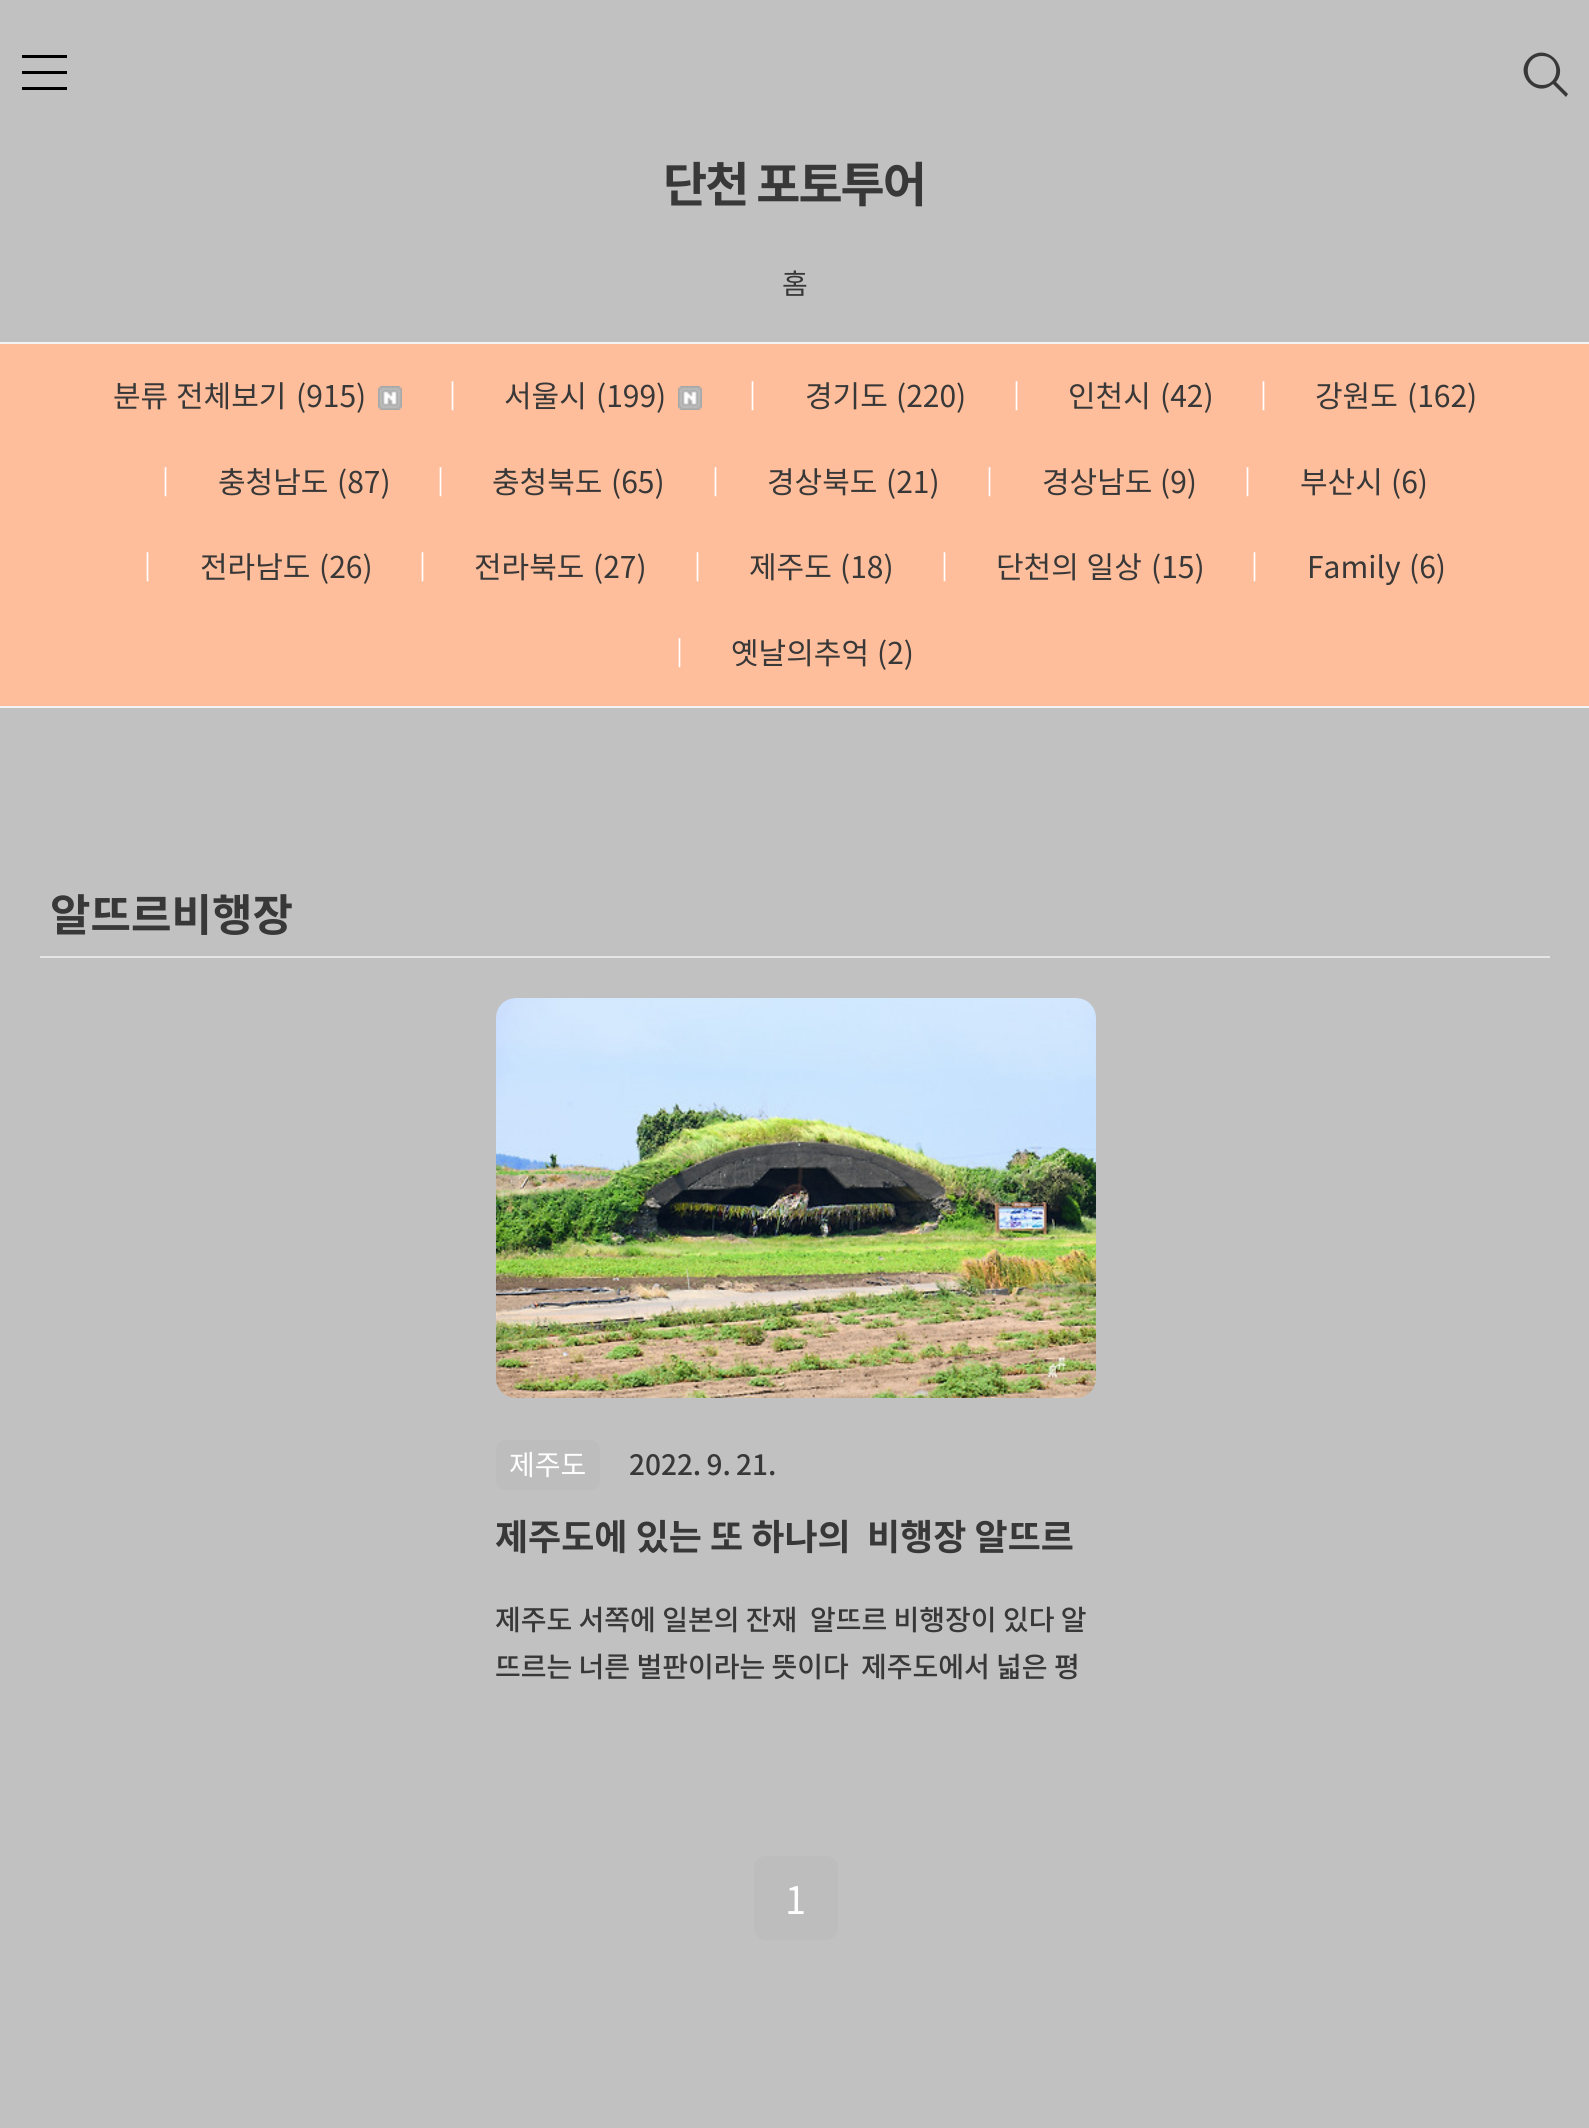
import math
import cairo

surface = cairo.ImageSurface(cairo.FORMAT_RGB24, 1589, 2128)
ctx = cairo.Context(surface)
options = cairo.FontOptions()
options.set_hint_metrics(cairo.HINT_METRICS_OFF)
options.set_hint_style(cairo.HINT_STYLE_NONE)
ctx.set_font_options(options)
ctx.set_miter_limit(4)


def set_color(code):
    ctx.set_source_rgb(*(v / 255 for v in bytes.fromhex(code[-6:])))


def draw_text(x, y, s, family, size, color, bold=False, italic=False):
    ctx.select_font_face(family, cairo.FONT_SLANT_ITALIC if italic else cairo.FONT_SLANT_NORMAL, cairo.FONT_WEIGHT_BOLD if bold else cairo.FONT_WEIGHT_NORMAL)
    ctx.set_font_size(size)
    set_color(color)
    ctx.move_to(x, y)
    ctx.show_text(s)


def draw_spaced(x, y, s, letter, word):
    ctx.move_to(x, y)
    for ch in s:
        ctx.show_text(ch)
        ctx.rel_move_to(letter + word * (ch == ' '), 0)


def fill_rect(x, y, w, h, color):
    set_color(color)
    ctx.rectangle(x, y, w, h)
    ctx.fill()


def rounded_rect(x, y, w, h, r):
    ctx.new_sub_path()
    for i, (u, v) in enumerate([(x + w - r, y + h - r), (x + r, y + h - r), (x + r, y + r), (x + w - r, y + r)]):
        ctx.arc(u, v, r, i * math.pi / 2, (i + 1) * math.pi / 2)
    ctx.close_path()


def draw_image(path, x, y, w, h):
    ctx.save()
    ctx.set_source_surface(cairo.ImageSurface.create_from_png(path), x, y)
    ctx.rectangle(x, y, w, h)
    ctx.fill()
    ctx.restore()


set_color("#c1c1c1")
ctx.paint()
set_color("#000000")
ctx.new_path()
ctx.move_to(22, 55)
ctx.line_to(67, 55)
ctx.line_to(67, 58)
ctx.line_to(22, 58)
ctx.close_path()
ctx.move_to(22, 87)
ctx.line_to(67, 87)
ctx.line_to(67, 90)
ctx.line_to(22, 90)
ctx.close_path()
ctx.move_to(22, 71)
ctx.line_to(67, 71)
ctx.line_to(67, 74)
ctx.line_to(22, 74)
ctx.close_path()
ctx.fill()
set_color("#383838")
ctx.new_path()
ctx.move_to(1553, 84)
ctx.line_to(1566, 97)
ctx.line_to(1568, 94)
ctx.line_to(1556, 82)
ctx.curve_to(1570, 65, 1545, 42, 1529, 58)
ctx.curve_to(1513, 74, 1536, 99, 1553, 84)
ctx.close_path()
ctx.move_to(1542, 56)
ctx.curve_to(1561, 56, 1561, 85, 1542, 85)
ctx.curve_to(1523, 85, 1523, 56, 1542, 56)
ctx.close_path()
ctx.fill()
ctx.select_font_face("Noto Sans KR", cairo.FONT_SLANT_NORMAL, cairo.FONT_WEIGHT_BOLD)
ctx.set_font_size(48)
draw_spaced(663, 202, "단천 포토투어", -2, 0)
draw_text(782, 294, "홈", "Noto Sans KR", 28, "#383838")
fill_rect(0, 344, 1589, 362, "#ffbe9b")
fill_rect(0, 342, 1589, 2, "#f4f4f4")
fill_rect(0, 706, 1589, 2, "#f4f4f4")
draw_text(449, 403, "|", "Noto Sans KR", 26, "#ffffff")
draw_text(504, 407, "서울시", "Noto Sans KR", 30, "#383838")
draw_text(596, 407, "(199)", "Noto Sans KR", 30, "#383838")
draw_image("assets/img1.png", 678, 386, 24, 24)
draw_text(749, 403, "|", "Noto Sans KR", 26, "#ffffff")
draw_text(805, 407, "경기도", "Noto Sans KR", 30, "#383838")
draw_text(896, 407, "(220)", "Noto Sans KR", 30, "#383838")
draw_text(1013, 403, "|", "Noto Sans KR", 26, "#ffffff")
draw_text(1068, 407, "인천시", "Noto Sans KR", 30, "#383838")
draw_text(1160, 407, "(42)", "Noto Sans KR", 30, "#383838")
draw_text(1260, 403, "|", "Noto Sans KR", 26, "#ffffff")
draw_text(1315, 407, "강원도", "Noto Sans KR", 30, "#383838")
draw_text(1407, 407, "(162)", "Noto Sans KR", 30, "#383838")
draw_text(162, 489, "|", "Noto Sans KR", 26, "#ffffff")
draw_text(218, 493, "충청남도", "Noto Sans KR", 30, "#383838")
draw_text(337, 493, "(87)", "Noto Sans KR", 30, "#383838")
draw_text(437, 489, "|", "Noto Sans KR", 26, "#ffffff")
draw_text(492, 493, "충청북도", "Noto Sans KR", 30, "#383838")
draw_text(611, 493, "(65)", "Noto Sans KR", 30, "#383838")
draw_text(712, 489, "|", "Noto Sans KR", 26, "#ffffff")
draw_text(767, 493, "경상북도", "Noto Sans KR", 30, "#383838")
draw_text(886, 493, "(21)", "Noto Sans KR", 30, "#383838")
draw_text(986, 489, "|", "Noto Sans KR", 26, "#ffffff")
draw_text(1042, 493, "경상남도", "Noto Sans KR", 30, "#383838")
draw_text(1160, 493, "(9)", "Noto Sans KR", 30, "#383838")
draw_text(1244, 489, "|", "Noto Sans KR", 26, "#ffffff")
draw_text(1300, 493, "부산시", "Noto Sans KR", 30, "#383838")
draw_text(1391, 493, "(6)", "Noto Sans KR", 30, "#383838")
draw_text(144, 574, "|", "Noto Sans KR", 26, "#ffffff")
draw_text(200, 578, "전라남도", "Noto Sans KR", 30, "#383838")
draw_text(319, 578, "(26)", "Noto Sans KR", 30, "#383838")
draw_text(419, 574, "|", "Noto Sans KR", 26, "#ffffff")
draw_text(474, 578, "전라북도", "Noto Sans KR", 30, "#383838")
draw_text(593, 578, "(27)", "Noto Sans KR", 30, "#383838")
draw_text(694, 574, "|", "Noto Sans KR", 26, "#ffffff")
draw_text(749, 578, "제주도", "Noto Sans KR", 30, "#383838")
draw_text(840, 578, "(18)", "Noto Sans KR", 30, "#383838")
draw_text(941, 574, "|", "Noto Sans KR", 26, "#ffffff")
ctx.set_font_size(30)
set_color("#383838")
draw_spaced(996, 578, "단천의 일상", 0, 1)
draw_text(1151, 578, "(15)", "Noto Sans KR", 30, "#383838")
draw_text(1251, 574, "|", "Noto Sans KR", 26, "#ffffff")
draw_text(1307, 578, "Family", "Noto Sans KR", 30, "#383838")
draw_text(1409, 578, "(6)", "Noto Sans KR", 30, "#383838")
draw_text(676, 660, "|", "Noto Sans KR", 26, "#ffffff")
draw_text(731, 664, "옛날의추억", "Noto Sans KR", 30, "#383838")
draw_text(877, 664, "(2)", "Noto Sans KR", 30, "#383838")
draw_spaced(113, 407, "분류 전체보기", 0, 1)
draw_text(296, 407, "(915)", "Noto Sans KR", 30, "#383838")
draw_image("assets/img1.png", 378, 386, 24, 24)
fill_rect(40, 956, 1510, 2, "#e5e5e5")
draw_text(50, 931, "알뜨르비행장", "Noto Sans KR", 44, "#383838", bold=True)
draw_image("assets/img2.png", 496, 998, 600, 400)
set_color("#bdbdbd")
rounded_rect(496, 1440, 104, 50, 10)
ctx.fill()
draw_text(509, 1475, "제주도", "Noto Sans KR", 28, "#ffffff")
ctx.select_font_face("Noto Sans KR Medium")
set_color("#383838")
draw_spaced(629, 1475, "2022. 9. 21.", 0, -1)
draw_text(495, 1550, "제주도에 있는 또 하나의", "Noto Sans KR", 36, "#383838", bold=True)
draw_text(867, 1550, "비행장 알뜨르", "Noto Sans KR", 36, "#383838", bold=True)
draw_text(495, 1630, "제주도 서쪽에 일본의 잔재", "Noto Sans KR Medium", 28, "#383838")
draw_text(810, 1630, "알뜨르 비행장이 있다 알", "Noto Sans KR Medium", 28, "#383838")
draw_text(495, 1677, "뜨르는 너른 벌판이라는 뜻이다", "Noto Sans KR Medium", 28, "#383838")
draw_text(861, 1677, "제주도에서 넓은 평", "Noto Sans KR Medium", 28, "#383838")
set_color("#bdbdbd")
rounded_rect(754, 1856, 84, 84, 12)
ctx.fill()
draw_text(785, 1914, "1", "Noto Sans KR", 38, "#ffffff")
surface.write_to_png("output.png")
